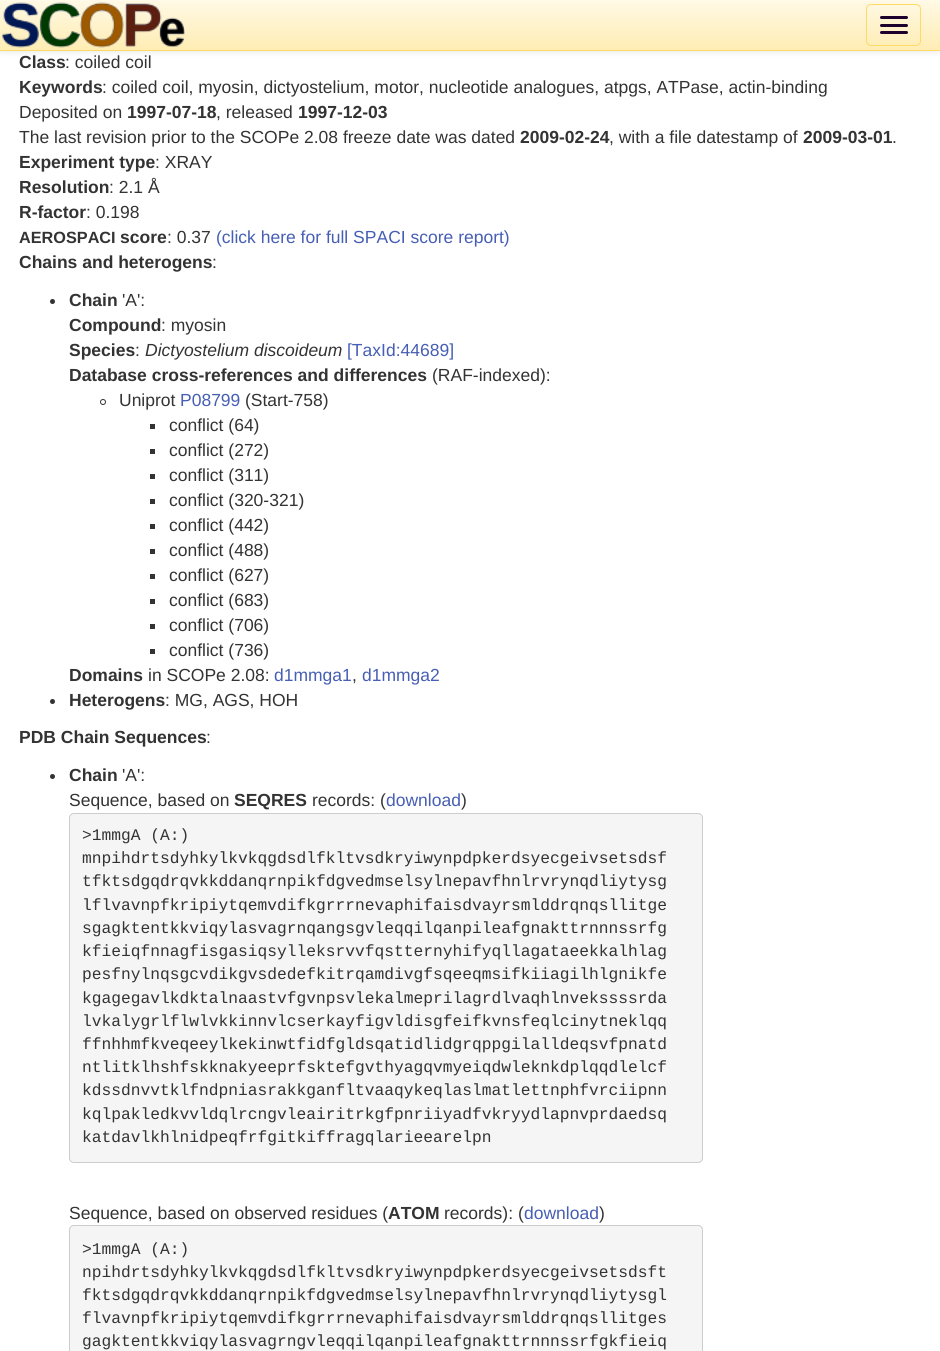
import math
import cairo

surface = cairo.ImageSurface(cairo.FORMAT_RGB24, 940, 1351)
ctx = cairo.Context(surface)
options = cairo.FontOptions()
options.set_hint_metrics(cairo.HINT_METRICS_OFF)
options.set_hint_style(cairo.HINT_STYLE_NONE)
ctx.set_font_options(options)
ctx.set_miter_limit(4)


def set_color(code):
    ctx.set_source_rgb(*(v / 255 for v in bytes.fromhex(code[-6:])))


def draw_text(x, y, s, family, size, color, bold=False, italic=False):
    ctx.select_font_face(family, cairo.FONT_SLANT_ITALIC if italic else cairo.FONT_SLANT_NORMAL, cairo.FONT_WEIGHT_BOLD if bold else cairo.FONT_WEIGHT_NORMAL)
    ctx.set_font_size(size)
    set_color(color)
    ctx.move_to(x, y)
    ctx.show_text(s)


def fill_rect(x, y, w, h, color):
    set_color(color)
    ctx.rectangle(x, y, w, h)
    ctx.fill()


def rounded_rect(x, y, w, h, r):
    ctx.new_sub_path()
    for i, (u, v) in enumerate([(x + w - r, y + h - r), (x + r, y + h - r), (x + r, y + r), (x + w - r, y + r)]):
        ctx.arc(u, v, r, i * math.pi / 2, (i + 1) * math.pi / 2)
    ctx.close_path()


def draw_shadow(x, y, w, h, r, blur, alpha):
    ctx.push_group_with_content(cairo.CONTENT_ALPHA)
    ctx.set_operator(cairo.OPERATOR_SOURCE)
    for i in range(15, -16, -2):
        e = blur * i / 6
        if min(w, h) + 2 * e > 0:
            ctx.set_source_rgba(0, 0, 0, alpha * math.erfc((i - 1) / 8.5) / 2)
            rounded_rect(x - e, y - e, w + 2 * e, h + 2 * e, max(0, min(r + e + blur * .6, min(w, h) / 2 + e)))
            ctx.fill()
    ctx.mask(ctx.pop_group())


def draw_image(path, x, y, w, h):
    ctx.save()
    ctx.set_source_surface(cairo.ImageSurface.create_from_png(path), x, y)
    ctx.rectangle(x, y, w, h)
    ctx.fill()
    ctx.restore()


set_color("#ffffff")
ctx.paint()
set_color("#000000")
draw_shadow(0, 1, 940, 52, 0, 3, 0.07)
gradient = cairo.LinearGradient(470, 0, 470, 50)
gradient.add_color_stop_rgba(0, 1, 0.976, 0.902, 1)
gradient.add_color_stop_rgba(1, 1, 0.929, 0.702, 1)
ctx.set_source(gradient)
ctx.rectangle(0, 1, 940, 49)
ctx.fill()
fill_rect(0, 0, 940, 1, "#fffae9")
fill_rect(0, 50, 940, 1, "#ffda65")
draw_image("assets/img1.png", 2, 2, 183, 46)
rounded_rect(866.5, 4.5, 54, 41, 4.5)
ctx.set_line_width(1)
ctx.stroke()
set_color("#1d002b")
rounded_rect(880, 16, 28, 3, 1.5)
ctx.fill()
rounded_rect(880, 24, 28, 3, 1.5)
ctx.fill()
rounded_rect(880, 31, 28, 3, 1.5)
ctx.fill()
draw_text(19, 68, "Class", "Liberation Sans", 17.5, "#333333", bold=True)
draw_text(65, 68, ": coiled coil", "Liberation Sans", 17.5, "#333333")
draw_text(19, 93, "Keywords", "Liberation Sans", 17.5, "#333333", bold=True)
draw_text(102, 93, ": coiled coil, myosin, dictyostelium, motor, nucleotide analogues, atpgs, ATPase, actin-binding", "Liberation Sans", 17.5, "#333333")
draw_text(19, 118, "Deposited on", "Liberation Sans", 17.5, "#333333")
draw_text(127, 118, "1997-07-18", "Liberation Sans", 17.5, "#333333", bold=True)
draw_text(216, 118, ", released", "Liberation Sans", 17.5, "#333333")
draw_text(298, 118, "1997-12-03", "Liberation Sans", 17.5, "#333333", bold=True)
draw_text(19, 143, "The last revision prior to the SCOPe 2.08 freeze date was dated", "Liberation Sans", 17.5, "#333333")
draw_text(520, 143, "2009-02-24", "Liberation Sans", 17.5, "#333333", bold=True)
draw_text(609, 143, ", with a file datestamp of", "Liberation Sans", 17.5, "#333333")
draw_text(803, 143, "2009-03-01", "Liberation Sans", 17.5, "#333333", bold=True)
draw_text(892, 143, ".", "Liberation Sans", 17.5, "#333333")
draw_text(19, 168, "Experiment type", "Liberation Sans", 17.5, "#333333", bold=True)
draw_text(155, 168, ": XRAY", "Liberation Sans", 17.5, "#333333")
draw_text(19, 193, "Resolution", "Liberation Sans", 17.5, "#333333", bold=True)
draw_text(109, 193, ": 2.1 Å", "Liberation Sans", 17.5, "#333333")
draw_text(19, 218, "R-factor", "Liberation Sans", 17.5, "#333333", bold=True)
draw_text(86, 218, ": 0.198", "Liberation Sans", 17.5, "#333333")
draw_text(19, 243, "AEROSPACI", "Liberation Sans", 16.25, "#333333", bold=True)
draw_text(120, 243, "score", "Liberation Sans", 17.5, "#333333", bold=True)
draw_text(167, 243, ": 0.37", "Liberation Sans", 17.5, "#333333")
draw_text(216, 243, "(click here for full SPACI score report)", "Liberation Sans", 17.5, "#465eb4")
draw_text(19, 268, "Chains and heterogens", "Liberation Sans", 17.5, "#333333", bold=True)
draw_text(212, 268, ":", "Liberation Sans", 17.5, "#333333")
ctx.new_path()
ctx.arc(52.5, 301.5, 2.5, 0, 2 * math.pi)
ctx.fill()
draw_text(69, 306, "Chain", "Liberation Sans", 17.5, "#333333", bold=True)
draw_text(122, 306, "'A':", "Liberation Sans", 17.5, "#333333")
draw_text(69, 331, "Compound", "Liberation Sans", 17.5, "#333333", bold=True)
draw_text(161, 331, ": myosin", "Liberation Sans", 17.5, "#333333")
draw_text(69, 356, "Species", "Liberation Sans", 17.5, "#333333", bold=True)
draw_text(135, 356, ":", "Liberation Sans", 17.5, "#333333")
draw_text(145, 356, "Dictyostelium discoideum", "Liberation Sans", 17.5, "#333333", italic=True)
draw_text(347, 356, "[TaxId:44689]", "Liberation Sans", 17.5, "#465eb4")
draw_text(69, 381, "Database cross-references and differences", "Liberation Sans", 17.5, "#333333", bold=True)
draw_text(432, 381, "(RAF-indexed):", "Liberation Sans", 17.5, "#333333")
ctx.new_path()
ctx.arc(103, 402, 2.5, 0, 2 * math.pi)
ctx.stroke()
draw_text(119, 406, "Uniprot", "Liberation Sans", 17.5, "#333333")
draw_text(180, 406, "P08799", "Liberation Sans", 17.5, "#465eb4")
draw_text(245, 406, "(Start-758)", "Liberation Sans", 17.5, "#333333")
fill_rect(150, 424, 5, 5, "#333333")
draw_text(169, 431, "conflict (64)", "Liberation Sans", 17.5, "#333333")
fill_rect(150, 449, 5, 5, "#333333")
draw_text(169, 456, "conflict (272)", "Liberation Sans", 17.5, "#333333")
fill_rect(150, 474, 5, 5, "#333333")
draw_text(169, 481, "conflict (311)", "Liberation Sans", 17.5, "#333333")
fill_rect(150, 499, 5, 5, "#333333")
draw_text(169, 506, "conflict (320-321)", "Liberation Sans", 17.5, "#333333")
fill_rect(150, 524, 5, 5, "#333333")
draw_text(169, 531, "conflict (442)", "Liberation Sans", 17.5, "#333333")
fill_rect(150, 549, 5, 5, "#333333")
draw_text(169, 556, "conflict (488)", "Liberation Sans", 17.5, "#333333")
fill_rect(150, 574, 5, 5, "#333333")
draw_text(169, 581, "conflict (627)", "Liberation Sans", 17.5, "#333333")
fill_rect(150, 599, 5, 5, "#333333")
draw_text(169, 606, "conflict (683)", "Liberation Sans", 17.5, "#333333")
fill_rect(150, 624, 5, 5, "#333333")
draw_text(169, 631, "conflict (706)", "Liberation Sans", 17.5, "#333333")
fill_rect(150, 649, 5, 5, "#333333")
draw_text(169, 656, "conflict (736)", "Liberation Sans", 17.5, "#333333")
draw_text(69, 681, "Domains", "Liberation Sans", 17.5, "#333333", bold=True)
draw_text(148, 681, "in SCOPe 2.08:", "Liberation Sans", 17.5, "#333333")
draw_text(274, 681, "d1mmga1", "Liberation Sans", 17.5, "#465eb4")
draw_text(352, 681, ",", "Liberation Sans", 17.5, "#333333")
draw_text(362, 681, "d1mmga2", "Liberation Sans", 17.5, "#465eb4")
set_color("#333333")
ctx.new_path()
ctx.arc(52.5, 701.5, 2.5, 0, 2 * math.pi)
ctx.fill()
draw_text(69, 706, "Heterogens", "Liberation Sans", 17.5, "#333333", bold=True)
draw_text(165, 706, ": MG, AGS, HOH", "Liberation Sans", 17.5, "#333333")
draw_text(19, 743, "PDB Chain Sequences", "Liberation Sans", 17.5, "#333333", bold=True)
draw_text(206, 743, ":", "Liberation Sans", 17.5, "#333333")
ctx.new_path()
ctx.arc(52.5, 776.5, 2.5, 0, 2 * math.pi)
ctx.fill()
draw_text(69, 781, "Chain", "Liberation Sans", 17.5, "#333333", bold=True)
draw_text(122, 781, "'A':", "Liberation Sans", 17.5, "#333333")
draw_text(69, 806, "Sequence, based on", "Liberation Sans", 17.5, "#333333")
draw_text(234, 806, "SEQRES", "Liberation Sans", 17.5, "#333333", bold=True)
draw_text(312, 806, "records: (", "Liberation Sans", 17.5, "#333333")
draw_text(386, 806, "download", "Liberation Sans", 17.5, "#465eb4")
draw_text(461, 806, ")", "Liberation Sans", 17.5, "#333333")
set_color("#f5f5f5")
rounded_rect(69.5, 813.5, 633, 349, 4.5)
ctx.fill_preserve()
set_color("#cccccc")
ctx.stroke()
draw_text(82, 840, ">1mmgA (A:)", "Liberation Mono", 16.25, "#333333")
draw_text(82, 863, "mnpihdrtsdyhkylkvkqgdsdlfkltvsdkryiwynpdpkerdsyecgeivsetsdsf", "Liberation Mono", 16.25, "#333333")
draw_text(82, 886, "tfktsdgqdrqvkkddanqrnpikfdgvedmselsylnepavfhnlrvrynqdliytysg", "Liberation Mono", 16.25, "#333333")
draw_text(82, 910, "lflvavnpfkripiytqemvdifkgrrrnevaphifaisdvayrsmlddrqnqsllitge", "Liberation Mono", 16.25, "#333333")
draw_text(82, 933, "sgagktentkkviqylasvagrnqangsgvleqqilqanpileafgnakttrnnnssrfg", "Liberation Mono", 16.25, "#333333")
draw_text(82, 956, "kfieiqfnnagfisgasiqsylleksrvvfqstternyhifyqllagataeekkalhlag", "Liberation Mono", 16.25, "#333333")
draw_text(82, 979, "pesfnylnqsgcvdikgvsdedefkitrqamdivgfsqeeqmsifkiiagilhlgnikfe", "Liberation Mono", 16.25, "#333333")
draw_text(82, 1003, "kgagegavlkdktalnaastvfgvnpsvlekalmeprilagrdlvaqhlnvekssssrda", "Liberation Mono", 16.25, "#333333")
draw_text(82, 1026, "lvkalygrlflwlvkkinnvlcserkayfigvldisgfeifkvnsfeqlcinytneklqq", "Liberation Mono", 16.25, "#333333")
draw_text(82, 1049, "ffnhhmfkveqeeylkekinwtfidfgldsqatidlidgrqppgilalldeqsvfpnatd", "Liberation Mono", 16.25, "#333333")
draw_text(82, 1072, "ntlitklhshfskknakyeeprfsktefgvthyagqvmyeiqdwleknkdplqqdlelcf", "Liberation Mono", 16.25, "#333333")
draw_text(82, 1095, "kdssdnvvtklfndpniasrakkganfltvaaqykeqlaslmatlettnphfvrciipnn", "Liberation Mono", 16.25, "#333333")
draw_text(82, 1119, "kqlpakledkvvldqlrcngvleairitrkgfpnriiyadfvkryydlapnvprdaedsq", "Liberation Mono", 16.25, "#333333")
draw_text(82, 1142, "katdavlkhlnidpeqfrfgitkiffragqlarieearelpn", "Liberation Mono", 16.25, "#333333")
draw_text(69, 1219, "Sequence, based on observed residues (", "Liberation Sans", 17.5, "#333333")
draw_text(388, 1219, "ATOM", "Liberation Sans", 17.5, "#333333", bold=True)
draw_text(444, 1219, "records): (", "Liberation Sans", 17.5, "#333333")
draw_text(524, 1219, "download", "Liberation Sans", 17.5, "#465eb4")
draw_text(599, 1219, ")", "Liberation Sans", 17.5, "#333333")
set_color("#f5f5f5")
rounded_rect(69.5, 1225.5, 633, 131, 4.5)
ctx.fill_preserve()
set_color("#cccccc")
ctx.stroke()
draw_text(82, 1254, ">1mmgA (A:)", "Liberation Mono", 16.25, "#333333")
draw_text(82, 1277, "npihdrtsdyhkylkvkqgdsdlfkltvsdkryiwynpdpkerdsyecgeivsetsdsft", "Liberation Mono", 16.25, "#333333")
draw_text(82, 1300, "fktsdgqdrqvkkddanqrnpikfdgvedmselsylnepavfhnlrvrynqdliytysgl", "Liberation Mono", 16.25, "#333333")
draw_text(82, 1323, "flvavnpfkripiytqemvdifkgrrrnevaphifaisdvayrsmlddrqnqsllitges", "Liberation Mono", 16.25, "#333333")
draw_text(82, 1346, "gagktentkkviqylasvagrngvleqqilqanpileafgnakttrnnnssrfgkfieiq", "Liberation Mono", 16.25, "#333333")
surface.write_to_png("output.png")
